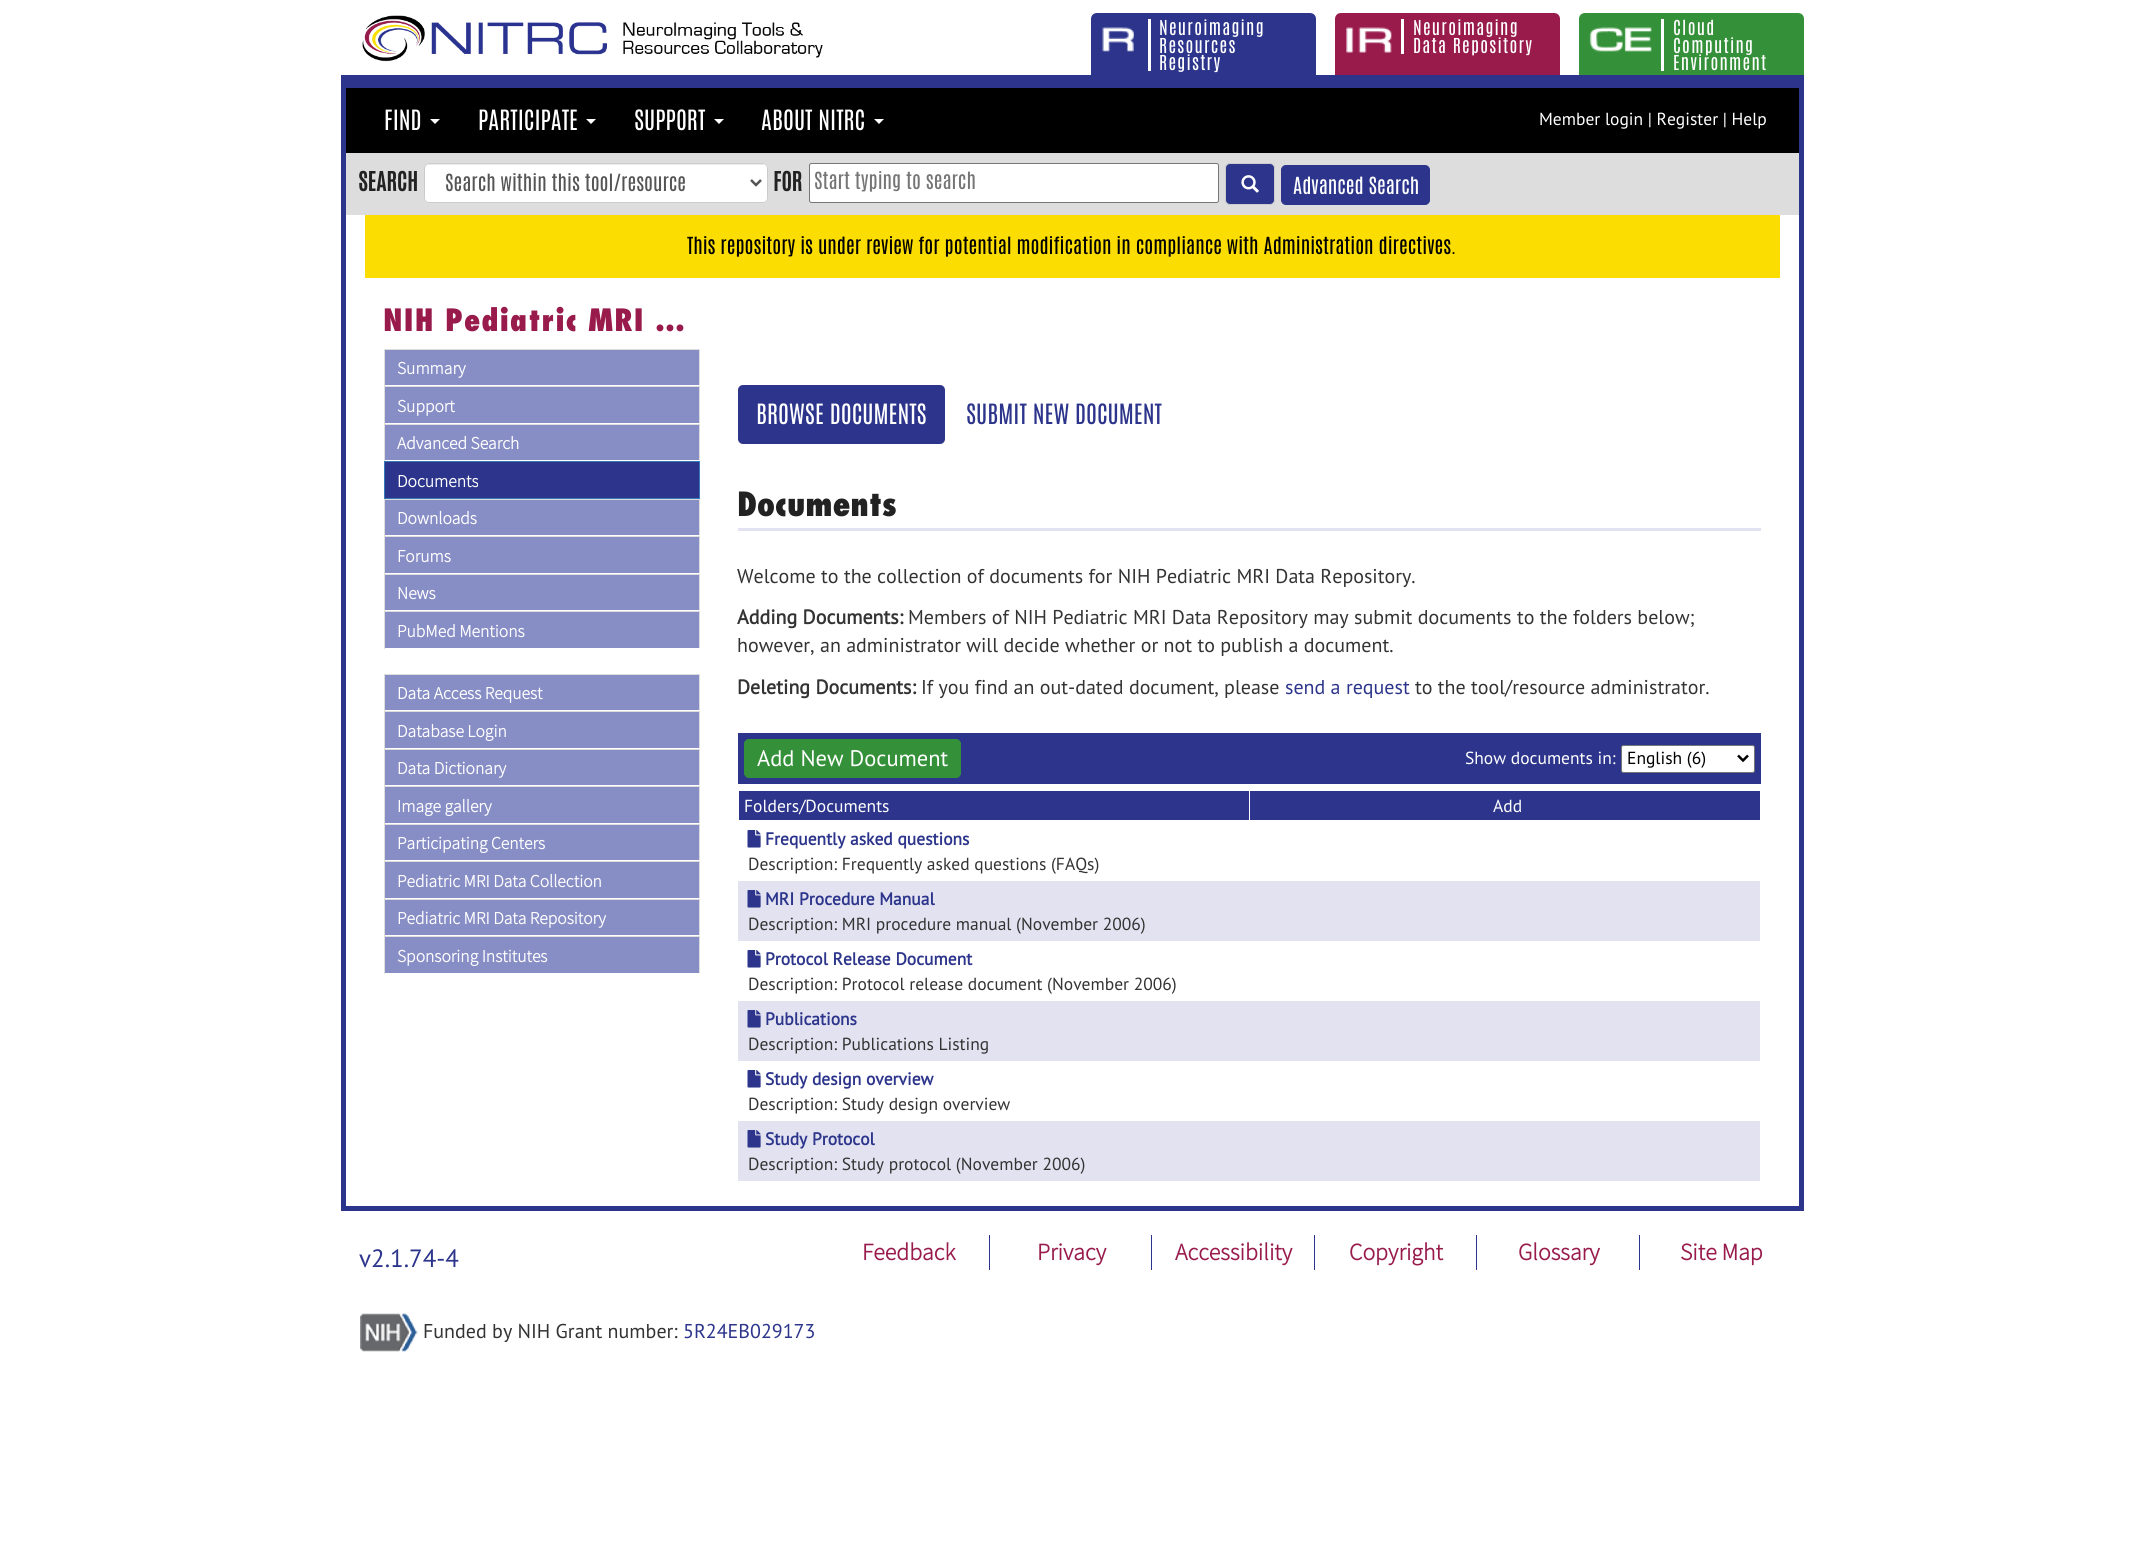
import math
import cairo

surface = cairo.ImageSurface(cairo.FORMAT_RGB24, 2143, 1562)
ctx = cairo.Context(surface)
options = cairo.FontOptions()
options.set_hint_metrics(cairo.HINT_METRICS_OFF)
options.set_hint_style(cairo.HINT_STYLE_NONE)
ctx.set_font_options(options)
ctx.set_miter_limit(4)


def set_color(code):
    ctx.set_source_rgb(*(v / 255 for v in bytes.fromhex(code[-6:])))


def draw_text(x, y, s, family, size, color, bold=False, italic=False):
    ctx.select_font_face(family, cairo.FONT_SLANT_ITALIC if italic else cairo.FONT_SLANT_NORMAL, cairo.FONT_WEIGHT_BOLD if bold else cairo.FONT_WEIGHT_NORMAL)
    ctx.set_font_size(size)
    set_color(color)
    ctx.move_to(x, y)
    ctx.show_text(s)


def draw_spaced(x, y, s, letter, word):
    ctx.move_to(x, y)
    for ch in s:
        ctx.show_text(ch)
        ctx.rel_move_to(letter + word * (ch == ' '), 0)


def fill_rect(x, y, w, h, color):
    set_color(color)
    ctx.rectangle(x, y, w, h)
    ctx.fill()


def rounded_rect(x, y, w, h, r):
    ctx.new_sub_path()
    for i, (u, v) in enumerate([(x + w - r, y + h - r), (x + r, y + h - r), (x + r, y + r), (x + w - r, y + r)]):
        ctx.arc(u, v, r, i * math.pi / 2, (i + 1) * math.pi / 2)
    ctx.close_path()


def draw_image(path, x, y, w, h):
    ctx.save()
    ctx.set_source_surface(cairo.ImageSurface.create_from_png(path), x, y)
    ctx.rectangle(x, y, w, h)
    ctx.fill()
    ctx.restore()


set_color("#ffffff")
ctx.paint()
draw_image("assets/img1.png", 362, 15, 245, 47)
draw_image("assets/img2.png", 623, 22, 200, 36)
set_color("#2c358b")
ctx.new_path()
ctx.move_to(1097, 13)
ctx.line_to(1310, 13)
ctx.curve_to(1313.5, 13, 1316, 15.5, 1316, 19)
ctx.line_to(1316, 75)
ctx.line_to(1091, 75)
ctx.line_to(1091, 19)
ctx.curve_to(1091, 15.5, 1093.5, 13, 1097, 13)
ctx.close_path()
ctx.fill()
draw_image("assets/img3.png", 1102, 27, 32, 25)
fill_rect(1148, 19, 3, 52, "#ffffff")
ctx.select_font_face("Antonio")
ctx.set_font_size(17.5)
draw_spaced(1159, 35, "Neuroimaging", 1.25, 0)
draw_spaced(1159, 53, "Resources", 1.25, 0)
draw_spaced(1159, 70, "Registry", 1.25, 0)
set_color("#981b4c")
ctx.new_path()
ctx.move_to(1341, 13)
ctx.line_to(1554, 13)
ctx.curve_to(1557.5, 13, 1560, 15.5, 1560, 19)
ctx.line_to(1560, 75)
ctx.line_to(1335, 75)
ctx.line_to(1335, 19)
ctx.curve_to(1335, 15.5, 1337.5, 13, 1341, 13)
ctx.close_path()
ctx.fill()
draw_image("assets/img4.png", 1346, 27, 46, 26)
fill_rect(1401, 19, 3, 35, "#ffffff")
draw_spaced(1413, 35, "Neuroimaging", 1.25, 0)
draw_spaced(1413, 53, "Data Repository", 1.25, 0)
set_color("#359139")
ctx.new_path()
ctx.move_to(1585, 13)
ctx.line_to(1798, 13)
ctx.curve_to(1801.5, 13, 1804, 15.5, 1804, 19)
ctx.line_to(1804, 75)
ctx.line_to(1579, 75)
ctx.line_to(1579, 19)
ctx.curve_to(1579, 15.5, 1581.5, 13, 1585, 13)
ctx.close_path()
ctx.fill()
draw_image("assets/img5.png", 1589, 27, 63, 25)
fill_rect(1661, 19, 3, 52, "#ffffff")
draw_spaced(1673, 35, "Cloud", 1.25, 0)
draw_spaced(1673, 53, "Computing", 1.25, 0)
draw_spaced(1673, 70, "Environment", 1.25, 0)
fill_rect(346, 75, 1453, 13, "#2c358b")
fill_rect(1799, 75, 5, 1136, "#2c358b")
fill_rect(341, 1206, 1463, 5, "#2c358b")
fill_rect(341, 75, 5, 1136, "#2c358b")
fill_rect(346, 88, 1453, 65, "#000000")
draw_text(384, 130, "FIND", "Antonio", 23.75, "#ffffff")
ctx.new_path()
ctx.move_to(430, 119)
ctx.line_to(440, 119)
ctx.line_to(435, 124)
ctx.close_path()
ctx.fill()
draw_text(478, 130, "PARTICIPATE", "Antonio", 23.75, "#ffffff")
ctx.new_path()
ctx.move_to(586, 119)
ctx.line_to(596, 119)
ctx.line_to(591, 124)
ctx.close_path()
ctx.fill()
draw_text(634, 130, "SUPPORT", "Antonio", 23.75, "#ffffff")
ctx.new_path()
ctx.move_to(714, 119)
ctx.line_to(724, 119)
ctx.line_to(719, 124)
ctx.close_path()
ctx.fill()
draw_text(761, 130, "ABOUT NITRC", "Antonio", 23.75, "#ffffff")
ctx.new_path()
ctx.move_to(874, 119)
ctx.line_to(884, 119)
ctx.line_to(879, 124)
ctx.close_path()
ctx.fill()
draw_text(1539, 125, "Member login | Register | Help", "PT Sans", 17.5, "#ffffff")
fill_rect(346, 153, 1453, 62, "#dddddd")
draw_text(358, 191, "SEARCH", "Antonio", 22.5, "#222222", bold=True)
set_color("#ffffff")
rounded_rect(424, 163, 344, 40, 5)
ctx.fill()
set_color("#ececec")
ctx.new_path()
ctx.move_to(429, 165)
ctx.line_to(764, 165)
ctx.line_to(766, 167)
ctx.line_to(766, 169)
ctx.line_to(766, 168)
ctx.curve_to(766, 166, 764, 164, 762, 164)
ctx.line_to(429, 164)
ctx.curve_to(427, 164, 425, 166, 425, 168)
ctx.line_to(425, 169)
ctx.curve_to(425, 167, 427, 165, 429, 165)
ctx.close_path()
ctx.fill()
rounded_rect(424.5, 163.5, 343, 39, 4.5)
set_color("#cccccc")
ctx.set_line_width(1)
ctx.stroke()
ctx.new_path()
ctx.move_to(751, 180)
ctx.line_to(756, 185)
ctx.line_to(761, 180)
set_color("#555555")
ctx.set_line_width(2.5)
ctx.stroke()
draw_text(445, 191, "Search within this tool/resource", "Antonio", 20, "#555555")
draw_text(773, 191, "FOR", "Antonio", 22.5, "#222222", bold=True)
set_color("#ffffff")
rounded_rect(809.5, 163.5, 409, 39, 2)
ctx.fill_preserve()
set_color("#767676")
ctx.set_line_width(1)
ctx.stroke()
draw_text(814, 189, "Start typing to search", "Antonio", 20, "#757575")
set_color("#2c358b")
rounded_rect(1225.5, 163.5, 49, 41, 4.5)
ctx.fill_preserve()
set_color("#cccccc")
ctx.stroke()
draw_image("assets/img6.png", 1241, 175, 18, 18)
set_color("#2c358b")
rounded_rect(1281.5, 165.5, 148, 39, 4.5)
ctx.fill_preserve()
ctx.stroke()
draw_text(1293, 194, "Advanced Search", "Antonio", 20, "#ffffff")
fill_rect(365, 215, 1415, 63, "#fcdd01")
draw_text(687, 254, "This repository is under review for potential modification in compliance with Administration directives.", "Antonio", 20, "#000000")
ctx.select_font_face("Futura ExtraBold")
ctx.set_font_size(30)
set_color("#981b4c")
draw_spaced(383, 331, "NIH Pediatric MRI …", 1.25, 0)
fill_rect(385, 350, 314, 35, "#878dc5")
fill_rect(384, 349, 316, 1, "#dddddd")
fill_rect(699, 349, 1, 37, "#dddddd")
fill_rect(699, 385, 1, 1, "#ffffff")
fill_rect(384, 349, 1, 37, "#dddddd")
draw_text(397, 374, "Summary", "Source Sans Pro", 17.5, "#ffffff", bold=True)
fill_rect(385, 387, 314, 36, "#878dc5")
fill_rect(384, 386, 316, 1, "#dddddd")
fill_rect(699, 386, 1, 38, "#dddddd")
fill_rect(699, 423, 1, 1, "#ffffff")
fill_rect(384, 386, 1, 38, "#dddddd")
draw_text(397, 412, "Support", "Source Sans Pro", 17.5, "#ffffff", bold=True)
fill_rect(385, 425, 314, 35, "#878dc5")
fill_rect(384, 424, 316, 1, "#dddddd")
fill_rect(699, 424, 1, 37, "#dddddd")
fill_rect(699, 460, 1, 1, "#ffffff")
fill_rect(384, 424, 1, 37, "#dddddd")
draw_text(397, 449, "Advanced Search", "Source Sans Pro", 17.5, "#ffffff", bold=True)
set_color("#2c358b")
ctx.rectangle(384.5, 461.5, 315, 37)
ctx.fill_preserve()
set_color("#337ab7")
ctx.stroke()
draw_text(397, 487, "Documents", "Source Sans Pro", 17.5, "#ffffff", bold=True)
fill_rect(385, 500, 314, 35, "#878dc5")
fill_rect(384, 499, 316, 1, "#dddddd")
fill_rect(699, 499, 1, 37, "#dddddd")
fill_rect(699, 535, 1, 1, "#ffffff")
fill_rect(384, 499, 1, 37, "#dddddd")
draw_text(397, 524, "Downloads", "Source Sans Pro", 17.5, "#ffffff", bold=True)
fill_rect(385, 537, 314, 36, "#878dc5")
fill_rect(384, 536, 316, 1, "#dddddd")
fill_rect(699, 536, 1, 38, "#dddddd")
fill_rect(699, 573, 1, 1, "#ffffff")
fill_rect(384, 536, 1, 38, "#dddddd")
draw_text(397, 562, "Forums", "Source Sans Pro", 17.5, "#ffffff", bold=True)
fill_rect(385, 575, 314, 35, "#878dc5")
fill_rect(384, 574, 316, 1, "#dddddd")
fill_rect(699, 574, 1, 37, "#dddddd")
fill_rect(699, 610, 1, 1, "#ffffff")
fill_rect(384, 574, 1, 37, "#dddddd")
draw_text(397, 599, "News", "Source Sans Pro", 17.5, "#ffffff", bold=True)
fill_rect(385, 612, 314, 36, "#878dc5")
fill_rect(384, 611, 316, 1, "#dddddd")
fill_rect(699, 611, 1, 38, "#dddddd")
fill_rect(699, 648, 1, 1, "#ffffff")
fill_rect(384, 611, 1, 38, "#dddddd")
draw_text(397, 637, "PubMed Mentions", "Source Sans Pro", 17.5, "#ffffff", bold=True)
fill_rect(385, 675, 314, 35, "#878dc5")
fill_rect(384, 674, 316, 1, "#dddddd")
fill_rect(699, 674, 1, 37, "#dddddd")
fill_rect(699, 710, 1, 1, "#ffffff")
fill_rect(384, 674, 1, 37, "#dddddd")
draw_text(397, 699, "Data Access Request", "Source Sans Pro", 17.5, "#ffffff", bold=True)
fill_rect(385, 712, 314, 36, "#878dc5")
fill_rect(384, 711, 316, 1, "#dddddd")
fill_rect(699, 711, 1, 38, "#dddddd")
fill_rect(699, 748, 1, 1, "#ffffff")
fill_rect(384, 711, 1, 38, "#dddddd")
draw_text(397, 737, "Database Login", "Source Sans Pro", 17.5, "#ffffff", bold=True)
fill_rect(385, 750, 314, 35, "#878dc5")
fill_rect(384, 749, 316, 1, "#dddddd")
fill_rect(699, 749, 1, 37, "#dddddd")
fill_rect(699, 785, 1, 1, "#ffffff")
fill_rect(384, 749, 1, 37, "#dddddd")
draw_text(397, 774, "Data Dictionary", "Source Sans Pro", 17.5, "#ffffff", bold=True)
fill_rect(385, 787, 314, 36, "#878dc5")
fill_rect(384, 786, 316, 1, "#dddddd")
fill_rect(699, 786, 1, 38, "#dddddd")
fill_rect(699, 823, 1, 1, "#ffffff")
fill_rect(384, 786, 1, 38, "#dddddd")
draw_text(397, 812, "Image gallery", "Source Sans Pro", 17.5, "#ffffff", bold=True)
fill_rect(385, 825, 314, 35, "#878dc5")
fill_rect(384, 824, 316, 1, "#dddddd")
fill_rect(699, 824, 1, 37, "#dddddd")
fill_rect(699, 860, 1, 1, "#ffffff")
fill_rect(384, 824, 1, 37, "#dddddd")
draw_text(397, 849, "Participating Centers", "Source Sans Pro", 17.5, "#ffffff", bold=True)
fill_rect(385, 862, 314, 36, "#878dc5")
fill_rect(384, 861, 316, 1, "#dddddd")
fill_rect(699, 861, 1, 38, "#dddddd")
fill_rect(699, 898, 1, 1, "#ffffff")
fill_rect(384, 861, 1, 38, "#dddddd")
draw_text(397, 887, "Pediatric MRI Data Collection", "Source Sans Pro", 17.5, "#ffffff", bold=True)
fill_rect(385, 900, 314, 35, "#878dc5")
fill_rect(384, 899, 316, 1, "#dddddd")
fill_rect(699, 899, 1, 37, "#dddddd")
fill_rect(699, 935, 1, 1, "#ffffff")
fill_rect(384, 899, 1, 37, "#dddddd")
draw_text(397, 924, "Pediatric MRI Data Repository", "Source Sans Pro", 17.5, "#ffffff", bold=True)
fill_rect(385, 937, 314, 36, "#878dc5")
fill_rect(384, 936, 316, 1, "#dddddd")
fill_rect(699, 936, 1, 38, "#dddddd")
fill_rect(699, 973, 1, 1, "#ffffff")
fill_rect(384, 936, 1, 38, "#dddddd")
draw_text(397, 962, "Sponsoring Institutes", "Source Sans Pro", 17.5, "#ffffff", bold=True)
set_color("#2c358b")
rounded_rect(738, 385, 207, 59, 5)
ctx.fill()
draw_text(756, 424, "BROWSE DOCUMENTS", "Antonio", 23.75, "#ffffff")
draw_text(966, 424, "SUBMIT NEW DOCUMENT", "Antonio", 23.75, "#2c358b")
fill_rect(738, 528, 1023, 3, "#e2e2f1")
draw_text(737, 516, "Documents", "Futura ExtraBold", 32.5, "#222222")
draw_text(737, 583, "Welcome to the collection of documents for NIH Pediatric MRI Data Repository.", "PT Sans", 20, "#333333")
draw_text(737, 624, "Adding Documents:", "PT Sans", 20, "#333333", bold=True)
draw_text(908, 624, "Members of NIH Pediatric MRI Data Repository may submit documents to the folders below;", "PT Sans", 20, "#333333")
draw_text(737, 652, "however, an administrator will decide whether or not to publish a document.", "PT Sans", 20, "#333333")
draw_text(737, 694, "Deleting Documents:", "PT Sans", 20, "#333333", bold=True)
draw_text(921, 694, "If you find an out-dated document, please", "PT Sans", 20, "#333333")
draw_text(1285, 694, "send a request", "PT Sans", 20, "#2c358b")
draw_text(1415, 694, "to the tool/resource administrator.", "PT Sans", 20, "#333333")
fill_rect(738, 733, 1023, 51, "#2c358b")
set_color("#359139")
rounded_rect(744.5, 739.5, 216, 38, 4.5)
ctx.fill_preserve()
ctx.stroke()
draw_text(757, 766, "Add New Document", "PT Sans", 22.5, "#ffffff")
draw_text(1465, 764, "Show documents in:", "PT Sans", 17.5, "#ffffff")
rounded_rect(1621.5, 745.5, 133, 27, 2)
ctx.fill_preserve()
set_color("#767676")
ctx.stroke()
ctx.new_path()
ctx.move_to(1738, 755.5)
ctx.line_to(1743, 760.5)
ctx.line_to(1748, 755.5)
set_color("#000000")
ctx.set_line_width(2.5)
ctx.stroke()
draw_text(1627, 764, "English (6)", "PT Sans", 17.5, "#000000")
fill_rect(739, 791, 1021, 29, "#2c358b")
draw_text(744, 812, "Folders/Documents", "PT Sans", 17.5, "#ffffff")
fill_rect(1249, 790, 1, 31, "#ffffff")
draw_text(1493, 812, "Add", "PT Sans", 17.5, "#ffffff")
draw_image("assets/img7.png", 747, 830, 14, 18)
draw_text(765, 845, "Frequently asked questions", "PT Sans", 17.5, "#2c358b", bold=True)
draw_text(748, 870, "Description: Frequently asked questions (FAQs)", "PT Sans", 17.5, "#333333")
fill_rect(738, 881, 1022, 60, "#e2e2f1")
draw_image("assets/img8.png", 747, 890, 14, 18)
draw_text(765, 905, "MRI Procedure Manual", "PT Sans", 17.5, "#2c358b", bold=True)
draw_text(748, 930, "Description: MRI procedure manual (November 2006)", "PT Sans", 17.5, "#333333")
draw_image("assets/img7.png", 747, 950, 14, 18)
draw_text(765, 965, "Protocol Release Document", "PT Sans", 17.5, "#2c358b", bold=True)
draw_text(748, 990, "Description: Protocol release document (November 2006)", "PT Sans", 17.5, "#333333")
fill_rect(738, 1001, 1022, 60, "#e2e2f1")
draw_image("assets/img8.png", 747, 1010, 14, 18)
draw_text(765, 1025, "Publications", "PT Sans", 17.5, "#2c358b", bold=True)
draw_text(748, 1050, "Description: Publications Listing", "PT Sans", 17.5, "#333333")
draw_image("assets/img7.png", 747, 1070, 14, 18)
draw_text(765, 1085, "Study design overview", "PT Sans", 17.5, "#2c358b", bold=True)
draw_text(748, 1110, "Description: Study design overview", "PT Sans", 17.5, "#333333")
fill_rect(738, 1121, 1022, 60, "#e2e2f1")
draw_image("assets/img8.png", 747, 1130, 14, 18)
draw_text(765, 1145, "Study Protocol", "PT Sans", 17.5, "#2c358b", bold=True)
draw_text(748, 1170, "Description: Study protocol (November 2006)", "PT Sans", 17.5, "#333333")
draw_text(359, 1267, "v2.1.74-4", "PT Sans", 25, "#2c358b")
fill_rect(989, 1235, 1, 35, "#2c358b")
draw_text(862, 1260, "Feedback", "Source Sans Pro", 23.75, "#981b4c", bold=True)
fill_rect(1151, 1235, 1, 35, "#2c358b")
draw_text(1037, 1260, "Privacy", "Source Sans Pro", 23.75, "#981b4c", bold=True)
fill_rect(1314, 1235, 1, 35, "#2c358b")
draw_text(1175, 1260, "Accessibility", "Source Sans Pro", 23.75, "#981b4c", bold=True)
fill_rect(1476, 1235, 1, 35, "#2c358b")
draw_text(1349, 1260, "Copyright", "Source Sans Pro", 23.75, "#981b4c", bold=True)
fill_rect(1639, 1235, 1, 35, "#2c358b")
draw_text(1518, 1260, "Glossary", "Source Sans Pro", 23.75, "#981b4c", bold=True)
draw_text(1680, 1260, "Site Map", "Source Sans Pro", 23.75, "#981b4c", bold=True)
draw_image("assets/img9.png", 360, 1313, 58, 39)
draw_text(423, 1338, "Funded by NIH Grant number:", "PT Sans", 20, "#333333")
draw_text(683, 1338, "5R24EB029173", "PT Sans", 20, "#2c358b")
surface.write_to_png("output.png")
